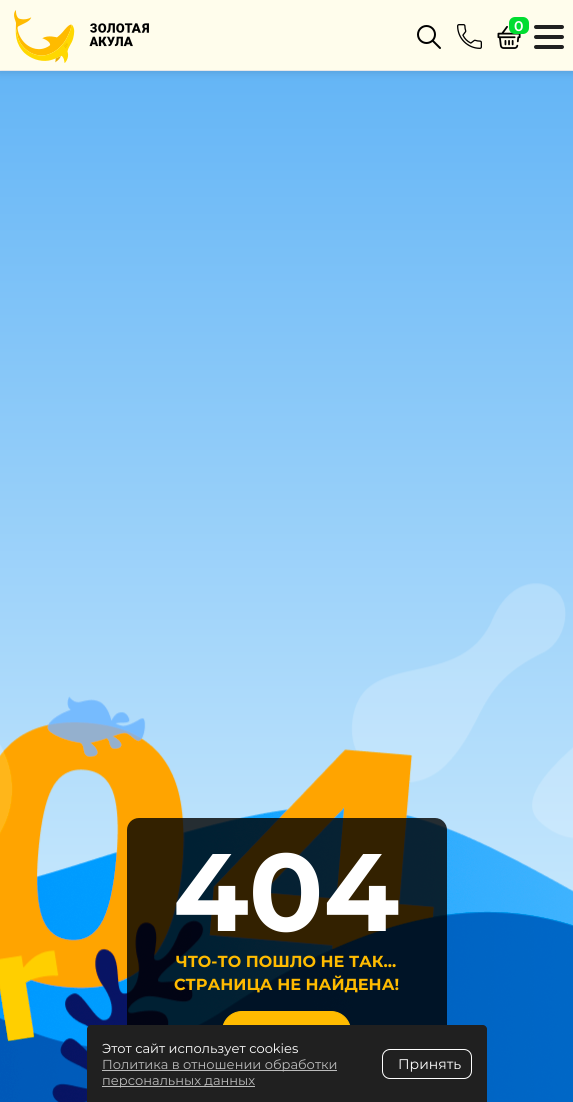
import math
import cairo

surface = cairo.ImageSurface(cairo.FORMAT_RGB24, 573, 1102)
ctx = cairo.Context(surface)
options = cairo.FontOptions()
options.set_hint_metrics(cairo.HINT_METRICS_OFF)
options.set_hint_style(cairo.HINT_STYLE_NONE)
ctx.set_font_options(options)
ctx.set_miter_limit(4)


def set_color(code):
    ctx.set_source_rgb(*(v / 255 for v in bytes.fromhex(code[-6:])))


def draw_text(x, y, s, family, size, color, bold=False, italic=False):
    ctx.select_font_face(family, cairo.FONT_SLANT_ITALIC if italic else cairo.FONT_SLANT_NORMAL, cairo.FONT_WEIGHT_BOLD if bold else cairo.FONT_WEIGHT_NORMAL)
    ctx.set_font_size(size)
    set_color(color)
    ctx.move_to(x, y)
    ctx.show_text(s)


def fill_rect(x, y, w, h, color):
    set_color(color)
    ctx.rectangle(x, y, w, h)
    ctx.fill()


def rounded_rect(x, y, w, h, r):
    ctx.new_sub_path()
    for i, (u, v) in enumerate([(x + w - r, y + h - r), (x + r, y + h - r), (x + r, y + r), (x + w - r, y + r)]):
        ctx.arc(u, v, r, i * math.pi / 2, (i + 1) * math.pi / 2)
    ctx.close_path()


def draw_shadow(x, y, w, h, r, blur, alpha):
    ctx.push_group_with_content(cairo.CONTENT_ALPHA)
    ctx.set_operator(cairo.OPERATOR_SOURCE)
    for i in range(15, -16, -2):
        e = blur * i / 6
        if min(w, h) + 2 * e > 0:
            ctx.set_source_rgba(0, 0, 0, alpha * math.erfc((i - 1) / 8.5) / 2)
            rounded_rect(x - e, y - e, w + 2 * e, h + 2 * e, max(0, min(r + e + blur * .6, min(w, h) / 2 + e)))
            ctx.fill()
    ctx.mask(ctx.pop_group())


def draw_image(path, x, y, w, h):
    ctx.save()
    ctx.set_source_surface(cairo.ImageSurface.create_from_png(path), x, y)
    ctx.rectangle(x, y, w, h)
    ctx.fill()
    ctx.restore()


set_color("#ffffff")
ctx.paint()
gradient = cairo.LinearGradient(287, 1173, 287, 71)
gradient.add_color_stop_rgba(0.02, 0.882, 0.961, 0.996, 1)
gradient.add_color_stop_rgba(1, 0.392, 0.71, 0.965, 1)
ctx.set_source(gradient)
ctx.rectangle(0, 71, 573, 821)
ctx.fill()
set_color("#000000")
draw_shadow(-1, -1, 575, 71, 0, 5, 0.2)
fill_rect(0, 0, 573, 70, "#fffdec")
draw_image("assets/img1.png", 14, 10, 135, 53)
draw_image("assets/img2.png", 417, 25, 24, 24)
draw_image("assets/img3.png", 457, 24, 25, 25)
draw_image("assets/img4.png", 497, 26, 24, 23)
set_color("#00dd31")
rounded_rect(509, 17, 20, 17, 6)
ctx.fill()
draw_text(514, 31, "0", "Montserrat SemiBold", 14, "#ffffff")
set_color("#202020")
rounded_rect(534, 25, 30, 4, 2)
ctx.fill()
rounded_rect(534, 35, 30, 4, 2)
ctx.fill()
rounded_rect(534, 45, 30, 4, 2)
ctx.fill()
draw_image("assets/img5.png", 0, 583, 573, 519)
ctx.set_source_rgba(0, 0, 0, 0.8)
rounded_rect(127, 818, 320, 265, 12)
ctx.fill()
draw_text(173, 931, "404", "Montserrat", 110, "#ffffff", bold=True)
draw_text(176, 967, "ЧТО-ТО ПОШЛО НЕ ТАК...", "Montserrat", 16, "#ffbb00", bold=True)
draw_text(174, 990, "СТРАНИЦА НЕ НАЙДЕНА!", "Montserrat", 16, "#ffbb00", bold=True)
rounded_rect(222.5, 1011.5, 128, 41, 19.5)
ctx.fill_preserve()
ctx.set_line_width(1)
ctx.stroke()
set_color("#202020")
ctx.new_path()
ctx.move_to(91, 1025)
ctx.line_to(483, 1025)
ctx.curve_to(485, 1025, 487, 1027, 487, 1029)
ctx.line_to(487, 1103)
ctx.line_to(87, 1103)
ctx.line_to(87, 1029)
ctx.curve_to(87, 1027, 89, 1025, 91, 1025)
ctx.close_path()
ctx.fill()
draw_text(102, 1053, "Этот сайт использует cookies", "Montserrat", 13, "#ffffff")
fill_rect(102, 1070, 235, 1, "#bcbcbc")
draw_text(102, 1069, "Политика в отношении обработки", "Montserrat", 13, "#bcbcbc")
fill_rect(102, 1086, 153, 1, "#bcbcbc")
draw_text(102, 1085, "персональных данных", "Montserrat", 13, "#bcbcbc")
rounded_rect(382.5, 1049.5, 89, 29, 7.5)
set_color("#ffffff")
ctx.stroke()
draw_text(398, 1069, "Принять", "Montserrat", 14, "#ffffff")
surface.write_to_png("output.png")
